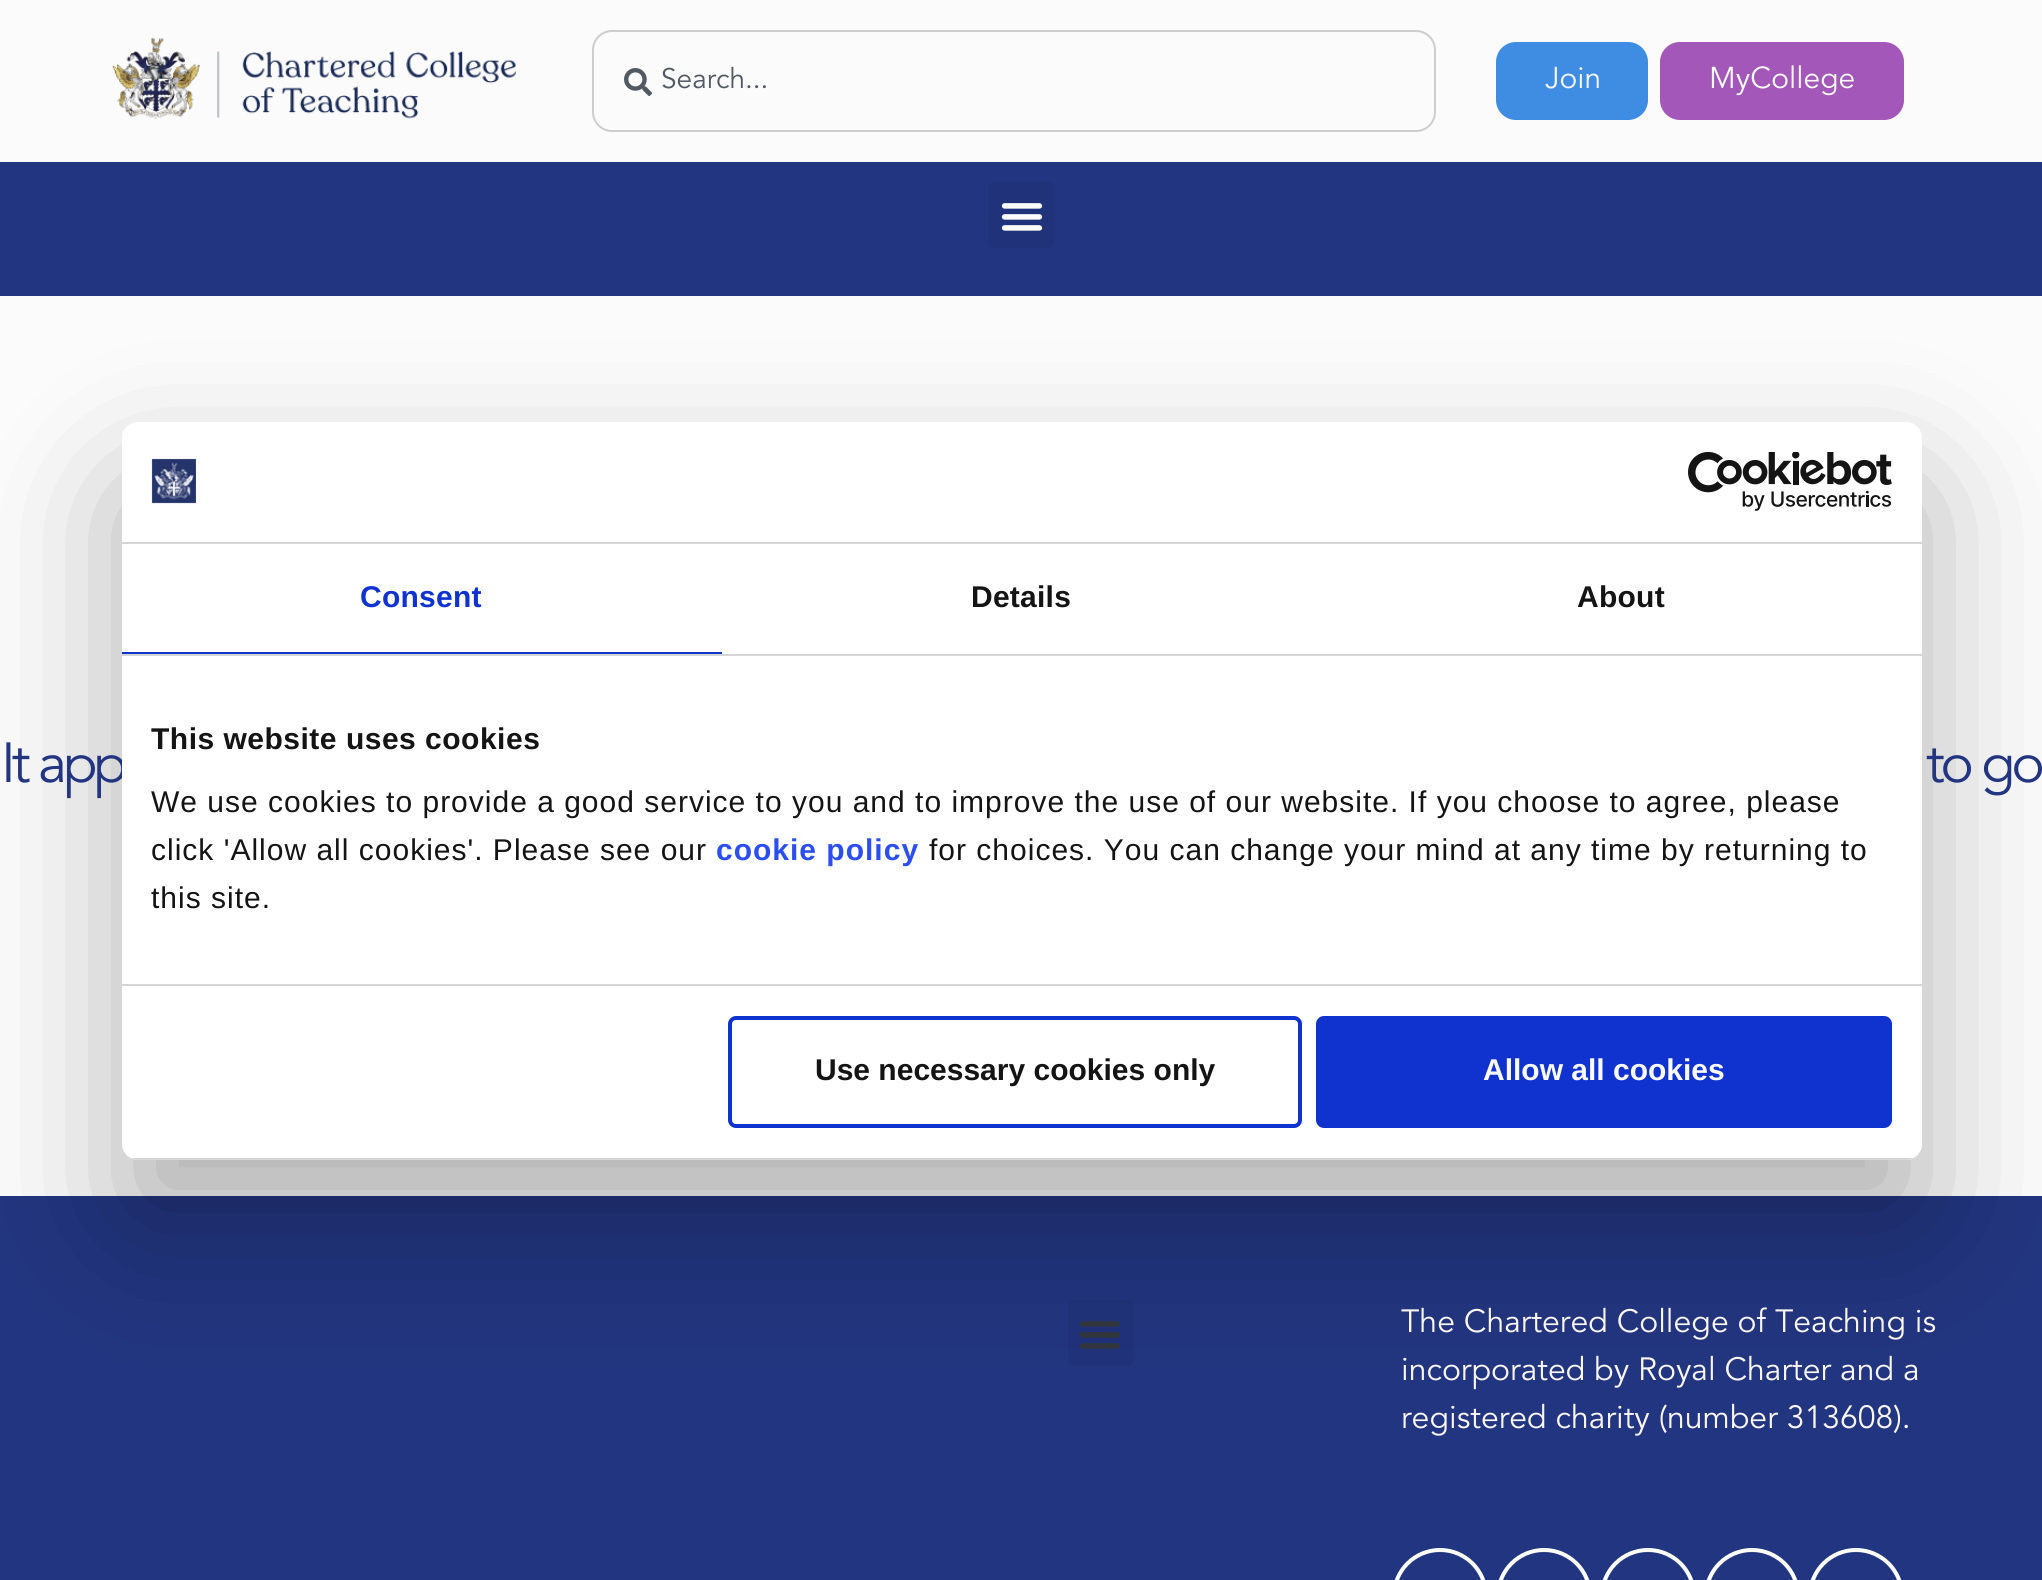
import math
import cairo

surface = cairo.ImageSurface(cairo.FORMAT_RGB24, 2042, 1580)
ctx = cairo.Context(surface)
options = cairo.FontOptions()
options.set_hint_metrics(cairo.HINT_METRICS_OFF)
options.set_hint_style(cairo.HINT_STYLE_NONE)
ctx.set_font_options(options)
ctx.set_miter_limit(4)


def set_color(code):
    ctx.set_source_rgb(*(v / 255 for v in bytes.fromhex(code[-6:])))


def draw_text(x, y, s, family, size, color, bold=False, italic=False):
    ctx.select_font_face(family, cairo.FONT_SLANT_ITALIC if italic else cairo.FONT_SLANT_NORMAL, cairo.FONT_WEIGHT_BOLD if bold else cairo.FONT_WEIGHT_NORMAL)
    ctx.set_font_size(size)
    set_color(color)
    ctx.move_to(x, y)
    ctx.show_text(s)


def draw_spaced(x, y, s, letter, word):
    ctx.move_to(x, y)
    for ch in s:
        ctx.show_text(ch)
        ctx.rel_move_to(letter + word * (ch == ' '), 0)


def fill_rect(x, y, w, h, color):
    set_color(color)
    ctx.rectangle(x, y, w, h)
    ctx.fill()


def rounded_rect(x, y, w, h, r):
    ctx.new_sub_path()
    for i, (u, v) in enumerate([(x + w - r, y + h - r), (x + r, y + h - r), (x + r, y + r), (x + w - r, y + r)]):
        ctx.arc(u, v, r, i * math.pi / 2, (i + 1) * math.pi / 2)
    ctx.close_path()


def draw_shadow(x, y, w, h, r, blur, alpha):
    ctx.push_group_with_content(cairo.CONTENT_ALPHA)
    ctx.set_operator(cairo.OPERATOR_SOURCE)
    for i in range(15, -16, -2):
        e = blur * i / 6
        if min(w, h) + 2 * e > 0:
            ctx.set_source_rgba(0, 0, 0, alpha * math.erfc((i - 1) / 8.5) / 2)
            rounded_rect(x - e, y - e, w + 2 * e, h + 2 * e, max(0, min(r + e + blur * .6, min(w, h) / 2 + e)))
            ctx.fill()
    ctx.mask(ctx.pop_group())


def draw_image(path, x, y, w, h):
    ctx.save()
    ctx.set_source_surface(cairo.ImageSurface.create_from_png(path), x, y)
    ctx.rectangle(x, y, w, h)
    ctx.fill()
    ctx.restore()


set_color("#fbfbfb")
ctx.paint()
draw_image("assets/img1.png", 112, 38, 404, 81)
rounded_rect(593, 31, 842, 100, 19)
set_color("#cdcdcd")
ctx.stroke()
draw_image("assets/img2.png", 624, 68, 28, 28)
draw_text(661, 88, "Search...", "Avenir", 28, "#515962")
set_color("#3e8de2")
rounded_rect(1496, 42, 152, 78, 20)
ctx.fill()
draw_text(1545, 88, "Join", "Avenir", 30, "#faf6f3")
set_color("#a357b8")
rounded_rect(1660, 42, 244, 78, 20)
ctx.fill()
draw_text(1709, 88, "MyCollege", "Avenir", 30, "#fbfbfb")
fill_rect(0, 162, 2042, 134, "#223580")
set_color("#20327a")
rounded_rect(988, 182, 66, 66, 6)
ctx.fill()
draw_image("assets/img3.png", 1001, 203, 42, 28)
fill_rect(0, 1196, 2042, 384, "#223580")
set_color("#20327a")
rounded_rect(1068, 1300, 66, 66, 6)
ctx.fill()
draw_image("assets/img6.png", 1079, 1321, 41, 28)
set_color("#000000")
draw_shadow(122, 486, 1800, 738, 16, 68, 0.3)
ctx.set_font_size(56)
set_color("#223580")
draw_spaced(1, 782, "It app", -4, 0)
set_color("#ffffff")
rounded_rect(122, 422, 1800, 738, 16)
ctx.fill()
fill_rect(122, 542, 1800, 2, "#d6d6d6")
draw_image("assets/img4.png", 151, 458, 45, 46)
draw_image("assets/img5.png", 1688, 452, 204, 59)
fill_rect(122, 654, 1800, 2, "#d6d6d6")
fill_rect(122, 652, 600, 2, "#1032cf")
ctx.select_font_face("Liberation Sans", cairo.FONT_SLANT_NORMAL, cairo.FONT_WEIGHT_BOLD)
ctx.set_font_size(30)
draw_spaced(360, 607, "Consent", 0.25, 0)
set_color("#141414")
draw_spaced(971, 607, "Details", 0.25, 0)
draw_spaced(1577, 607, "About", 0.25, 0)
fill_rect(122, 984, 1800, 2, "#d6d6d6")
set_color("#141414")
draw_spaced(151, 749, "This website uses cookies", 0.5, 0)
ctx.select_font_face("Liberation Sans")
draw_spaced(151, 812, "We use cookies to provide a good service to you and to improve the use of our website. If you choose to agree, please", 1, 0)
draw_spaced(151, 860, "click 'Allow all cookies'. Please see our", 1, 0)
ctx.select_font_face("Liberation Sans", cairo.FONT_SLANT_NORMAL, cairo.FONT_WEIGHT_BOLD)
set_color("#2a4eef")
draw_spaced(716, 860, "cookie policy", 1, 0)
ctx.select_font_face("Liberation Sans")
set_color("#141414")
draw_spaced(929, 860, "for choices. You can change your mind at any time by returning to", 1, 0)
draw_spaced(151, 908, "this site.", 1, 0)
ctx.save()
rounded_rect(122, 422, 1800, 738, 16)
ctx.clip()
fill_rect(122, 1158, 1800, 2, "#d6d6d6")
ctx.restore()
rounded_rect(730, 1018, 570, 108, 6)
set_color("#1032cf")
ctx.set_line_width(4)
ctx.stroke()
draw_text(815, 1080, "Use necessary cookies only", "Liberation Sans", 30, "#141414", bold=True)
set_color("#1032cf")
rounded_rect(1318, 1018, 572, 108, 6)
ctx.fill_preserve()
ctx.stroke()
draw_text(1483, 1080, "Allow all cookies", "Liberation Sans", 30, "#fbfbfb", bold=True)
ctx.select_font_face("Avenir")
ctx.set_font_size(56)
set_color("#223580")
draw_spaced(1926, 782, "to go", -4, 0)
draw_text(1401, 1332, "The Chartered College of Teaching is", "Avenir", 32, "#faf6f3")
draw_text(1401, 1380, "incorporated by Royal Charter and a", "Avenir", 32, "#faf6f3")
draw_text(1401, 1428, "registered charity (number 313608).", "Avenir", 32, "#faf6f3")
rounded_rect(1394, 1550, 92, 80, 46)
set_color("#ffffff")
ctx.stroke()
rounded_rect(1498, 1550, 92, 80, 46)
ctx.stroke()
rounded_rect(1602, 1550, 92, 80, 46)
ctx.stroke()
rounded_rect(1706, 1550, 92, 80, 46)
ctx.stroke()
rounded_rect(1810, 1550, 92, 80, 46)
ctx.stroke()
surface.write_to_png("output.png")
